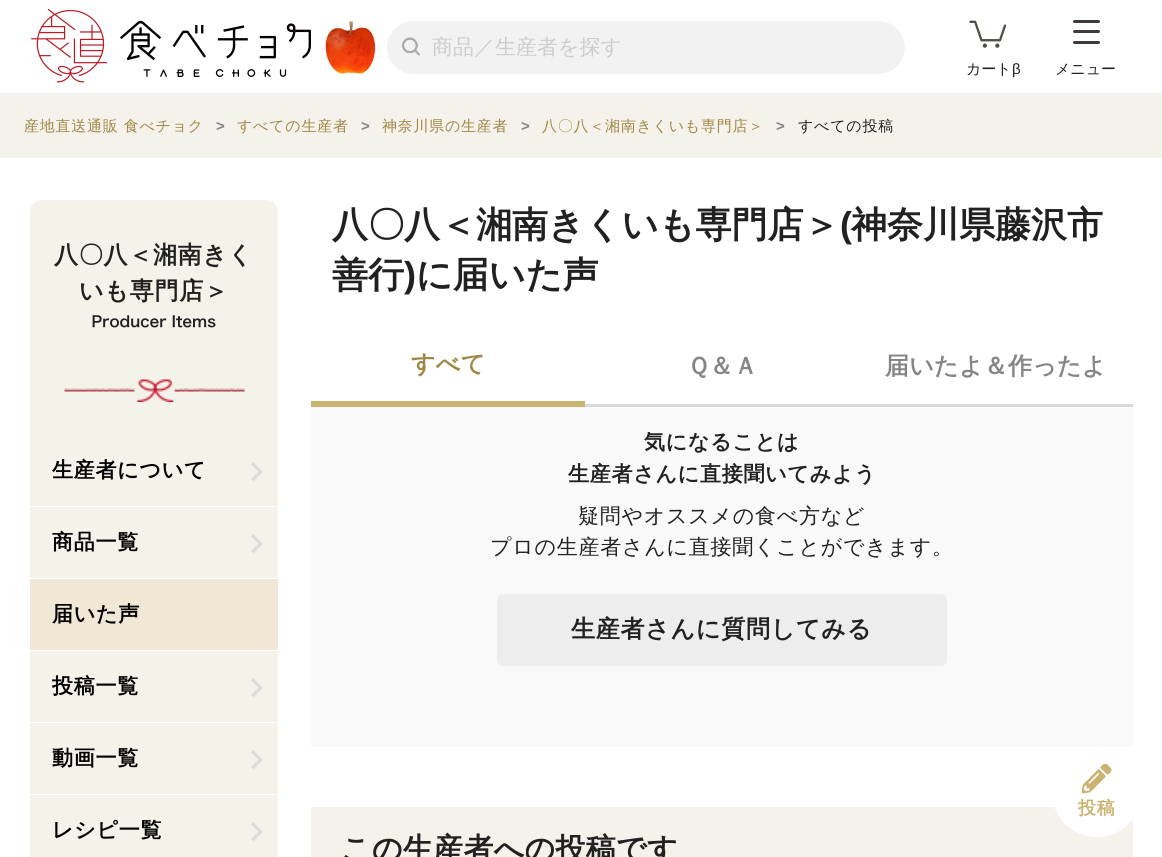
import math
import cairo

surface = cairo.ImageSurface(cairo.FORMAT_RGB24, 1162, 857)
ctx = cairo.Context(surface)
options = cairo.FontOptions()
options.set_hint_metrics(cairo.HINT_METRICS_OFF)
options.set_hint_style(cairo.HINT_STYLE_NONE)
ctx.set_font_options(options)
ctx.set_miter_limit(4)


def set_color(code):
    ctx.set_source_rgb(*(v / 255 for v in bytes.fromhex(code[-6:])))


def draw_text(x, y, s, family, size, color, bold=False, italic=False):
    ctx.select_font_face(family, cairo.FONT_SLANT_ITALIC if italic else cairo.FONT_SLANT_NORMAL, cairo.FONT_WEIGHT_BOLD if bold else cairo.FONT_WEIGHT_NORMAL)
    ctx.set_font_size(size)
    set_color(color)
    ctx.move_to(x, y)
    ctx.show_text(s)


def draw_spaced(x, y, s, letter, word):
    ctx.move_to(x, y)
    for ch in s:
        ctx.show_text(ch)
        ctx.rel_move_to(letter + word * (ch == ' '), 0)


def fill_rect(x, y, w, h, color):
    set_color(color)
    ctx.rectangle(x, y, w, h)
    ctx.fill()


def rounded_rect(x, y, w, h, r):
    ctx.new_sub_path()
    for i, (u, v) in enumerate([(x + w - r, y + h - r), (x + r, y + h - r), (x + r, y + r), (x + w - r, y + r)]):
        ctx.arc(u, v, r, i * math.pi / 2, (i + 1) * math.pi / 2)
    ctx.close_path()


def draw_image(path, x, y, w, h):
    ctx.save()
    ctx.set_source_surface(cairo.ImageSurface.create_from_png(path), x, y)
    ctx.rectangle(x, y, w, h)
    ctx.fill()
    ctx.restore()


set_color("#ffffff")
ctx.paint()
fill_rect(0, 93, 1162, 2, "#f2f2f2")
draw_image("assets/img1.png", 31, 9, 280, 74)
draw_image("assets/img2.png", 324, 21, 53, 53)
rounded_rect(387, 21, 518, 53, 26.5)
ctx.fill()
draw_image("assets/img3.png", 402, 37, 18, 19)
draw_text(432, 54, "商品／生産者を探す", "WenQuanYi Zen Hei Medium", 21, "#cccccc")
draw_image("assets/img4.png", 969, 20, 38, 28)
draw_text(966, 74, "カート", "WenQuanYi Zen Hei Medium", 15, "#212121")
draw_text(1012, 74, "β", "Liberation Sans", 15, "#212121")
set_color("#403a39")
rounded_rect(1073, 20, 27, 3, 1.5)
ctx.fill()
rounded_rect(1073, 30, 27, 3, 1.5)
ctx.fill()
rounded_rect(1073, 41, 27, 3, 1.5)
ctx.fill()
draw_text(1055, 74, "メニュー", "WenQuanYi Zen Hei Medium", 15, "#212121")
fill_rect(0, 95, 1162, 63, "#f5f1eb")
set_color("#9f8745")
draw_spaced(24, 131, "産地直送通販 食べチョク", 0.75, 0)
ctx.select_font_face("Liberation Sans", cairo.FONT_SLANT_NORMAL, cairo.FONT_WEIGHT_BOLD)
set_color("#858585")
draw_spaced(216, 131, ">", 0.75, 0)
ctx.select_font_face("WenQuanYi Zen Hei Medium")
set_color("#9f8745")
draw_spaced(237, 131, "すべての生産者", 0.75, 0)
ctx.select_font_face("Liberation Sans", cairo.FONT_SLANT_NORMAL, cairo.FONT_WEIGHT_BOLD)
set_color("#858585")
draw_spaced(361, 131, ">", 0.75, 0)
ctx.select_font_face("WenQuanYi Zen Hei Medium")
set_color("#9f8745")
draw_spaced(382, 131, "神奈川県の生産者", 0.75, 0)
ctx.select_font_face("Liberation Sans", cairo.FONT_SLANT_NORMAL, cairo.FONT_WEIGHT_BOLD)
set_color("#858585")
draw_spaced(521, 131, ">", 0.75, 0)
ctx.select_font_face("WenQuanYi Zen Hei Medium")
set_color("#9f8745")
draw_spaced(542, 131, "八〇八＜湘南きくいも専門店＞", 0.75, 0)
ctx.select_font_face("Liberation Sans", cairo.FONT_SLANT_NORMAL, cairo.FONT_WEIGHT_BOLD)
set_color("#858585")
draw_spaced(776, 131, ">", 0.75, 0)
ctx.select_font_face("WenQuanYi Zen Hei Medium")
set_color("#212121")
draw_spaced(798, 131, "すべての投稿", 0.75, 0)
set_color("#f5f3e9")
rounded_rect(30, 200, 248, 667, 12)
ctx.fill()
ctx.select_font_face("WenQuanYi Zen Hei", cairo.FONT_SLANT_NORMAL, cairo.FONT_WEIGHT_BOLD)
ctx.set_font_size(24)
set_color("#212121")
draw_spaced(54, 263, "八〇八＜湘南きく", 0.75, 0)
draw_spaced(79, 299, "いも専門店＞", 0.75, 0)
draw_image("assets/img5.png", 92, 315, 124, 13)
draw_image("assets/img6.png", 64, 379, 181, 23)
fill_rect(30, 506, 248, 1, "#ffffff")
ctx.set_font_size(21)
set_color("#000000")
draw_spaced(52, 477, "生産者について", 0.75, 0)
set_color("#dddddd")
ctx.new_path()
ctx.move_to(253.5, 462)
ctx.line_to(263, 472)
ctx.line_to(260.5, 474)
ctx.line_to(251, 464.5)
ctx.close_path()
ctx.fill()
ctx.new_path()
ctx.move_to(260.5, 469.5)
ctx.line_to(263, 472)
ctx.line_to(253.5, 481.5)
ctx.line_to(251, 479)
ctx.close_path()
ctx.fill()
fill_rect(30, 578, 248, 1, "#ffffff")
set_color("#000000")
draw_spaced(52, 549, "商品一覧", 0.75, 0)
set_color("#dddddd")
ctx.new_path()
ctx.move_to(253.5, 534)
ctx.line_to(263, 544)
ctx.line_to(260.5, 546)
ctx.line_to(251, 536.5)
ctx.close_path()
ctx.fill()
ctx.new_path()
ctx.move_to(260.5, 541.5)
ctx.line_to(263, 544)
ctx.line_to(253.5, 553.5)
ctx.line_to(251, 551)
ctx.close_path()
ctx.fill()
fill_rect(30, 650, 248, 1, "#ffffff")
fill_rect(30, 579, 248, 71, "#f0e8d5")
set_color("#000000")
draw_spaced(52, 621, "届いた声", 0.75, 0)
fill_rect(30, 722, 248, 1, "#ffffff")
set_color("#000000")
draw_spaced(52, 693, "投稿一覧", 0.75, 0)
set_color("#dddddd")
ctx.new_path()
ctx.move_to(253.5, 678)
ctx.line_to(263, 688)
ctx.line_to(260.5, 690)
ctx.line_to(251, 680.5)
ctx.close_path()
ctx.fill()
ctx.new_path()
ctx.move_to(260.5, 685.5)
ctx.line_to(263, 688)
ctx.line_to(253.5, 697.5)
ctx.line_to(251, 695)
ctx.close_path()
ctx.fill()
fill_rect(30, 794, 248, 1, "#ffffff")
set_color("#000000")
draw_spaced(52, 765, "動画一覧", 0.75, 0)
set_color("#dddddd")
ctx.new_path()
ctx.move_to(253.5, 750)
ctx.line_to(263, 760)
ctx.line_to(260.5, 762)
ctx.line_to(251, 752.5)
ctx.close_path()
ctx.fill()
ctx.new_path()
ctx.move_to(260.5, 757.5)
ctx.line_to(263, 760)
ctx.line_to(253.5, 769.5)
ctx.line_to(251, 767)
ctx.close_path()
ctx.fill()
fill_rect(30, 856, 248, 1, "#f5f3e9")
set_color("#000000")
draw_spaced(52, 837, "レシピ一覧", 0.75, 0)
set_color("#dddddd")
ctx.new_path()
ctx.move_to(253.5, 822)
ctx.line_to(263, 832)
ctx.line_to(260.5, 834)
ctx.line_to(251, 824.5)
ctx.close_path()
ctx.fill()
ctx.new_path()
ctx.move_to(260.5, 829.5)
ctx.line_to(263, 832)
ctx.line_to(253.5, 841.5)
ctx.line_to(251, 839)
ctx.close_path()
ctx.fill()
draw_text(332, 237, "八〇八＜湘南きくいも専門店＞", "WenQuanYi Zen Hei", 36, "#212121", bold=True)
draw_text(840, 237, "(", "Liberation Sans", 36, "#212121", bold=True)
draw_text(851, 237, "神奈川県藤沢市", "WenQuanYi Zen Hei", 36, "#212121", bold=True)
draw_text(332, 287, "善行", "WenQuanYi Zen Hei", 36, "#212121", bold=True)
draw_text(404, 287, ")", "Liberation Sans", 36, "#212121", bold=True)
draw_text(416, 287, "に届いた声", "WenQuanYi Zen Hei", 36, "#212121", bold=True)
fill_rect(311, 407, 822, 340, "#f9f9f9")
fill_rect(311, 401, 274, 6, "#cab270")
ctx.set_font_size(24)
set_color("#9f8745")
draw_spaced(411, 372, "すべて", 0.25, 0)
fill_rect(585, 404, 548, 3, "#d9d9d9")
set_color("#858585")
draw_spaced(687, 374, "Ｑ＆Ａ", 0.25, 0)
draw_spaced(885, 374, "届いたよ＆作ったよ", 0.25, 0)
ctx.set_font_size(21)
set_color("#212121")
draw_spaced(644, 449, "気になることは", 0.75, 0)
draw_spaced(568, 481, "生産者さんに直接聞いてみよう", 0.75, 0)
ctx.select_font_face("WenQuanYi Zen Hei Medium")
draw_spaced(578, 523, "疑問やオススメの食べ方など", 0.75, 0)
draw_spaced(490, 554, "プロの生産者さんに直接聞くことができます。", 0.75, 0)
set_color("#ededed")
rounded_rect(497, 594, 450, 72, 6)
ctx.fill()
ctx.select_font_face("WenQuanYi Zen Hei", cairo.FONT_SLANT_NORMAL, cairo.FONT_WEIGHT_BOLD)
ctx.set_font_size(24)
set_color("#212121")
draw_spaced(571, 637, "生産者さんに質問してみる", 0.75, 0)
fill_rect(311, 807, 822, 50, "#f5f1eb")
set_color("#ffffff")
ctx.new_path()
ctx.arc(1097, 792, 45, 0, 2 * math.pi)
ctx.fill()
draw_image("assets/img7.png", 1082, 764, 30, 30)
ctx.set_font_size(18)
set_color("#cab270")
draw_spaced(1078, 814, "投稿", 0.75, 0)
ctx.set_font_size(30)
set_color("#212121")
draw_spaced(341, 859, "この生産者への投稿です", 0.25, 0)
surface.write_to_png("output.png")
